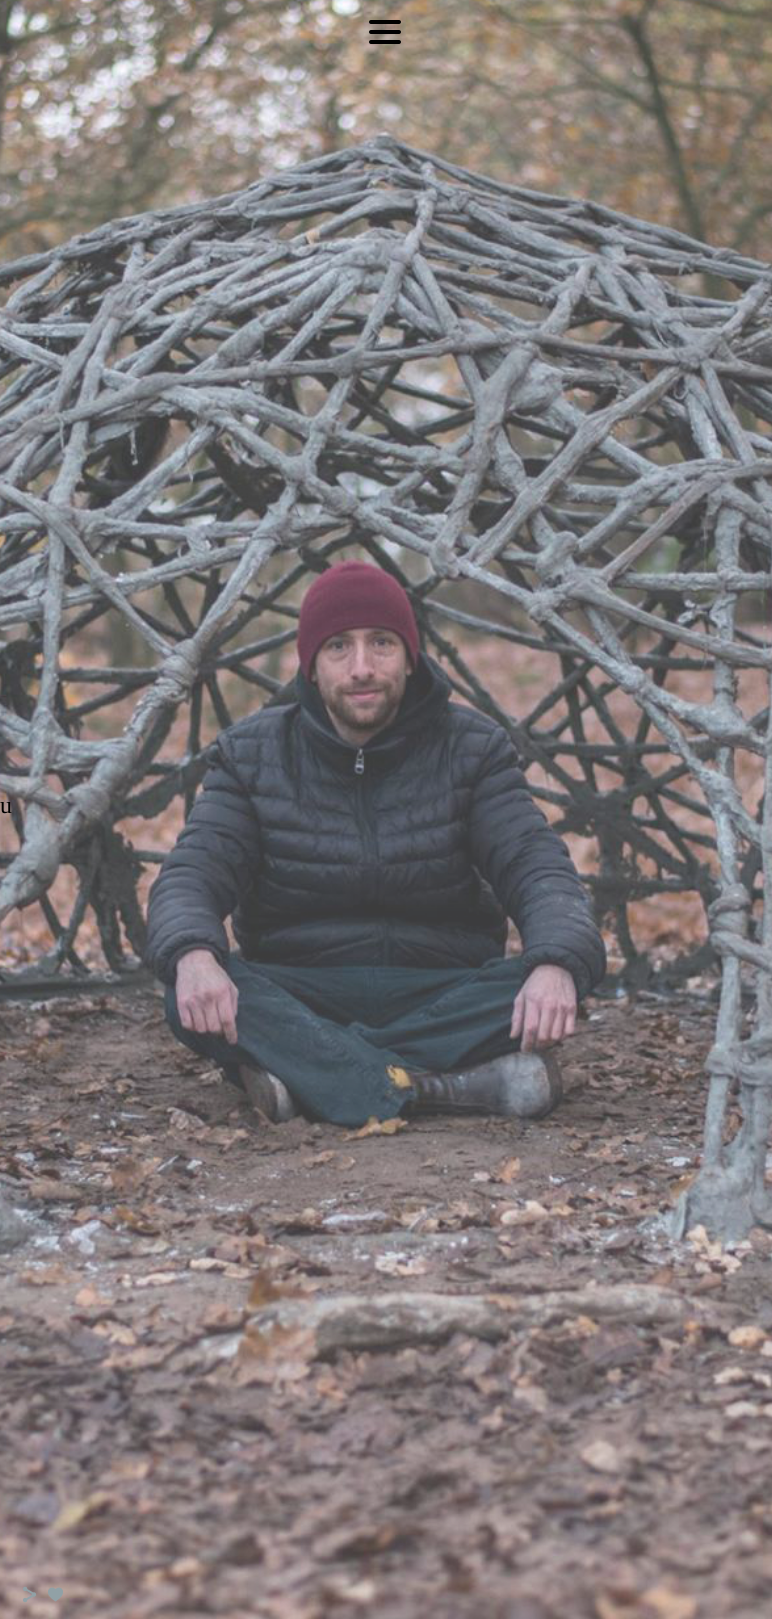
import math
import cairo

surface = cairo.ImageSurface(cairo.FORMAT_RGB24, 772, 1619)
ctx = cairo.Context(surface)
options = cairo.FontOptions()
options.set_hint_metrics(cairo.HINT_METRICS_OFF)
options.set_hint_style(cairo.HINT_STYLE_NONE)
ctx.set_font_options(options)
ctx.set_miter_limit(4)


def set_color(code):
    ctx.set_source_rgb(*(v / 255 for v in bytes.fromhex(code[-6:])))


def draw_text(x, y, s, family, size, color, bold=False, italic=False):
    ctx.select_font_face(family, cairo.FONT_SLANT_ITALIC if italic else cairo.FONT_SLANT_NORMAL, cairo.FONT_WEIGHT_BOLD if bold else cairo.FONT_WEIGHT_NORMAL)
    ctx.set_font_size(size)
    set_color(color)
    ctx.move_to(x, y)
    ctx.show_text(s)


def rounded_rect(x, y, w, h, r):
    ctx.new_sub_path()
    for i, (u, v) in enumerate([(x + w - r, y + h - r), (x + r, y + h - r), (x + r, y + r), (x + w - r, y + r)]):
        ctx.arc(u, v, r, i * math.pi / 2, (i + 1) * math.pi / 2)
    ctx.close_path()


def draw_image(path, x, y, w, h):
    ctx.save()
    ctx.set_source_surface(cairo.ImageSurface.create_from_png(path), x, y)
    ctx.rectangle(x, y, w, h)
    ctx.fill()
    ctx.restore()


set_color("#ffffff")
ctx.paint()
draw_image("assets/img1.png", 0, 0, 772, 1619)
set_color("#000000")
rounded_rect(369, 20, 32, 4, 2)
ctx.fill()
rounded_rect(369, 30, 32, 4, 2)
ctx.fill()
rounded_rect(369, 40, 32, 4, 2)
ctx.fill()
draw_text(0, 813, "u", "Liberation Serif", 24, "#000000")
draw_image("assets/img2.png", 23, 1586, 13, 17)
draw_image("assets/img3.png", 48, 1587, 15, 15)
surface.write_to_png("output.png")
